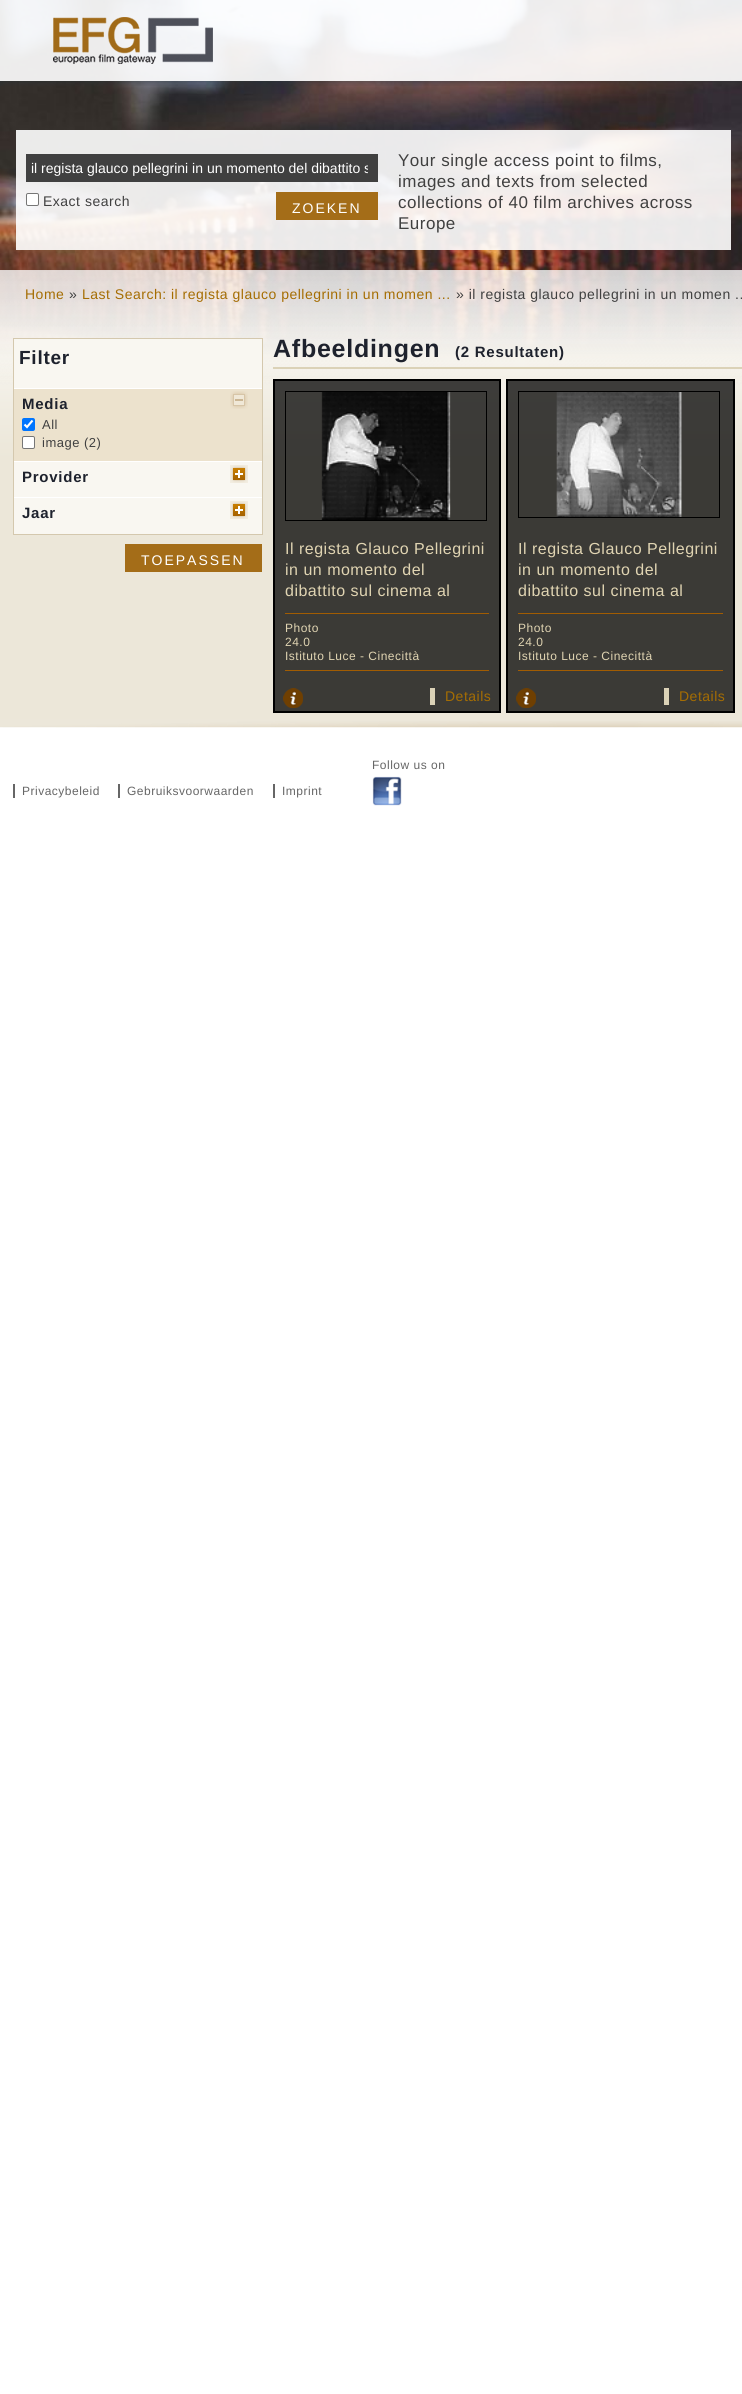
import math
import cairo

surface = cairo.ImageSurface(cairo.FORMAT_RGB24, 742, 2394)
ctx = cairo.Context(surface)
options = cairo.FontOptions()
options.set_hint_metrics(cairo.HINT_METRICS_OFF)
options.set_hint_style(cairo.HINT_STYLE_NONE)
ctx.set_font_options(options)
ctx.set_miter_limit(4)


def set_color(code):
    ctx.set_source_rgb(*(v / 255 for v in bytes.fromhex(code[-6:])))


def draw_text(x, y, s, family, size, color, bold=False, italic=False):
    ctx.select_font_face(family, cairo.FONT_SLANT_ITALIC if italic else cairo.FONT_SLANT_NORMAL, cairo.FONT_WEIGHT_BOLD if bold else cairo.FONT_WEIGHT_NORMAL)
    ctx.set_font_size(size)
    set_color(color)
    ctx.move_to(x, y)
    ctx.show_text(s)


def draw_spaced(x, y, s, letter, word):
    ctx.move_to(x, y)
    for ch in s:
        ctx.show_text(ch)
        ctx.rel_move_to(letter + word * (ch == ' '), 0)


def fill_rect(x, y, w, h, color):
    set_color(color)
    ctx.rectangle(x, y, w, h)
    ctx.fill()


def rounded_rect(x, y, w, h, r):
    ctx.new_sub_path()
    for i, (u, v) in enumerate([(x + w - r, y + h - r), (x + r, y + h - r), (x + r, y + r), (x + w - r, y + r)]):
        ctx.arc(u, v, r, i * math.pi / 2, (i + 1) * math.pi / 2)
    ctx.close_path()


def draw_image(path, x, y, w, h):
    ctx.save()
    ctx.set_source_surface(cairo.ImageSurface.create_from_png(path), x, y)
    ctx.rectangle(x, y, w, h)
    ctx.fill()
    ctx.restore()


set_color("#ffffff")
ctx.paint()
draw_image("assets/img1.png", 0, 0, 742, 385)
draw_image("assets/img2.png", 0, 0, 742, 86)
ctx.set_source_rgba(1, 1, 1, 0.9)
ctx.rectangle(16, 130, 715, 120)
ctx.fill()
fill_rect(26, 154, 352, 28, "#404040")
ctx.save()
ctx.rectangle(31, 160, 337, 16)
ctx.clip()
draw_text(31, 173, "il regista glauco pellegrini in un momento del dibattito s", "Liberation Sans", 14, "#ffffff")
ctx.restore()
set_color("#ffffff")
rounded_rect(26.5, 193.5, 12, 12, 1.5)
ctx.fill_preserve()
set_color("#767676")
ctx.set_line_width(1)
ctx.stroke()
ctx.select_font_face("Liberation Sans")
ctx.set_font_size(14)
set_color("#404040")
draw_spaced(43, 206, "Exact search", 0.5, 0)
fill_rect(276, 192, 102, 28, "#a46d18")
set_color("#ffffff")
draw_spaced(292, 213, "ZOEKEN", 2, 0)
ctx.set_font_size(17)
set_color("#404040")
draw_spaced(398, 166, "Your single access point to films,", 0.5, 0)
draw_spaced(398, 187, "images and texts from selected", 0.5, 0)
draw_spaced(398, 208, "collections of 40 film archives across", 0.5, 0)
draw_spaced(398, 229, "Europe", 0.5, 0)
draw_image("assets/img3.png", 0, 270, 742, 186)
ctx.set_font_size(14)
set_color("#a56d02")
draw_spaced(25, 299, "Home", 0.5, 0)
set_color("#404040")
draw_spaced(69, 299, "»", 0.5, 0)
set_color("#a56d02")
draw_spaced(82, 299, "Last Search: il regista glauco pellegrini in un momen ...", 0.5, 0)
set_color("#404040")
draw_spaced(456, 299, "» il regista glauco pellegrini in un momen ..", 0.5, 0)
fill_rect(0, 456, 742, 263, "#ece7d9")
set_color("#f9f7f1")
ctx.rectangle(13.5, 338.5, 249, 196)
ctx.fill_preserve()
set_color("#d4c8ae")
ctx.stroke()
ctx.select_font_face("Liberation Sans", cairo.FONT_SLANT_NORMAL, cairo.FONT_WEIGHT_BOLD)
ctx.set_font_size(19)
set_color("#1e222d")
draw_spaced(19, 364, "Filter", 0.75, 0)
fill_rect(14, 389, 248, 72, "#ece2cd")
fill_rect(14, 388, 248, 1, "#ffffff")
ctx.set_font_size(15)
set_color("#1e222d")
draw_spaced(22, 409, "Media", 0.75, 0)
draw_image("assets/img4.png", 230, 391, 18, 18)
set_color("#0075ff")
rounded_rect(22, 418, 13, 13, 2)
ctx.fill()
ctx.new_path()
ctx.move_to(24.5, 424.5)
ctx.line_to(27, 427)
ctx.line_to(32.5, 420.5)
set_color("#ffffff")
ctx.set_line_width(2.1)
ctx.stroke()
ctx.select_font_face("Liberation Sans")
ctx.set_font_size(13)
set_color("#404040")
draw_spaced(42, 429, "All", 0.5, 0)
set_color("#ffffff")
rounded_rect(22.5, 436.5, 12, 12, 1.5)
ctx.fill_preserve()
set_color("#767676")
ctx.set_line_width(1)
ctx.stroke()
set_color("#404040")
draw_spaced(42, 447, "image (2)", 0.5, 0)
fill_rect(14, 461, 248, 1, "#ffffff")
ctx.select_font_face("Liberation Sans", cairo.FONT_SLANT_NORMAL, cairo.FONT_WEIGHT_BOLD)
ctx.set_font_size(15)
set_color("#1e222d")
draw_spaced(22, 482, "Provider", 0.75, 0)
draw_image("assets/img5.png", 230, 465, 18, 18)
fill_rect(14, 497, 248, 1, "#ffffff")
set_color("#1e222d")
draw_spaced(22, 518, "Jaar", 0.75, 0)
draw_image("assets/img5.png", 230, 501, 18, 18)
fill_rect(125, 544, 137, 28, "#a46d18")
ctx.select_font_face("Liberation Sans")
ctx.set_font_size(14)
set_color("#ffffff")
draw_spaced(141, 565, "TOEPASSEN", 2, 0)
fill_rect(273, 367, 469, 2, "#dbd2b7")
ctx.select_font_face("Liberation Sans", cairo.FONT_SLANT_NORMAL, cairo.FONT_WEIGHT_BOLD)
ctx.set_font_size(25)
set_color("#1e222d")
draw_spaced(273, 357, "Afbeeldingen", 0.75, 0)
ctx.set_font_size(15)
draw_spaced(455, 357, "(2 Resultaten)", 0.75, 0)
ctx.set_source_rgba(0, 0, 0, 0.75)
ctx.rectangle(274, 380, 226, 332)
ctx.fill_preserve()
set_color("#000000")
ctx.set_line_width(2)
ctx.stroke()
ctx.rectangle(285.5, 391.5, 201, 129)
ctx.set_line_width(1)
ctx.stroke()
draw_image("assets/img6.png", 321, 392, 130, 128)
ctx.select_font_face("Liberation Sans")
ctx.set_font_size(16)
set_color("#e0d4b2")
draw_spaced(285, 554, "Il regista Glauco Pellegrini", 0.5, 0)
draw_spaced(285, 575, "in un momento del", 0.5, 0)
draw_spaced(285, 596, "dibattito sul cinema al", 0.5, 0)
fill_rect(285, 613, 204, 1, "#a15c02")
fill_rect(285, 670, 204, 1, "#a15c02")
ctx.set_font_size(12)
set_color("#e0d4b2")
draw_spaced(285, 632, "Photo", 0.5, 0)
draw_spaced(285, 646, "24.0", 0.5, 0)
draw_spaced(285, 660, "Istituto Luce - Cinecittà", 0.5, 0)
draw_image("assets/img7.png", 283, 688, 20, 20)
fill_rect(430, 688, 5, 17, "#dbd2b7")
ctx.set_font_size(14)
set_color("#a56d02")
draw_spaced(445, 701, "Details", 0.5, 0)
ctx.set_source_rgba(0, 0, 0, 0.75)
ctx.rectangle(507, 380, 227, 332)
ctx.fill_preserve()
set_color("#000000")
ctx.set_line_width(2)
ctx.stroke()
ctx.rectangle(518.5, 391.5, 201, 126)
ctx.set_line_width(1)
ctx.stroke()
draw_image("assets/img8.png", 556, 392, 126, 125)
ctx.set_font_size(16)
set_color("#e0d4b2")
draw_spaced(518, 554, "Il regista Glauco Pellegrini", 0.5, 0)
draw_spaced(518, 575, "in un momento del", 0.5, 0)
draw_spaced(518, 596, "dibattito sul cinema al", 0.5, 0)
fill_rect(518, 613, 205, 1, "#a15c02")
fill_rect(518, 670, 205, 1, "#a15c02")
ctx.set_font_size(12)
set_color("#e0d4b2")
draw_spaced(518, 632, "Photo", 0.5, 0)
draw_spaced(518, 646, "24.0", 0.5, 0)
draw_spaced(518, 660, "Istituto Luce - Cinecittà", 0.5, 0)
draw_image("assets/img7.png", 516, 688, 20, 20)
fill_rect(664, 688, 5, 17, "#dbd2b7")
ctx.set_font_size(14)
set_color("#a56d02")
draw_spaced(679, 701, "Details", 0.5, 0)
fill_rect(0, 719, 742, 9, "#ece7da")
draw_image("assets/img9.png", 0, 721, 742, 50)
ctx.set_font_size(12)
set_color("#666666")
draw_spaced(372, 769, "Follow us on", 0.5, 0)
draw_image("assets/img10.png", 372, 776, 30, 30)
draw_spaced(22, 795, "Privacybeleid", 0.5, 0)
fill_rect(13, 784, 2, 14, "#666666")
draw_spaced(127, 795, "Gebruiksvoorwaarden", 0.5, 0)
fill_rect(118, 784, 2, 14, "#666666")
draw_spaced(282, 795, "Imprint", 0.5, 0)
fill_rect(273, 784, 2, 14, "#666666")
surface.write_to_png("output.png")
